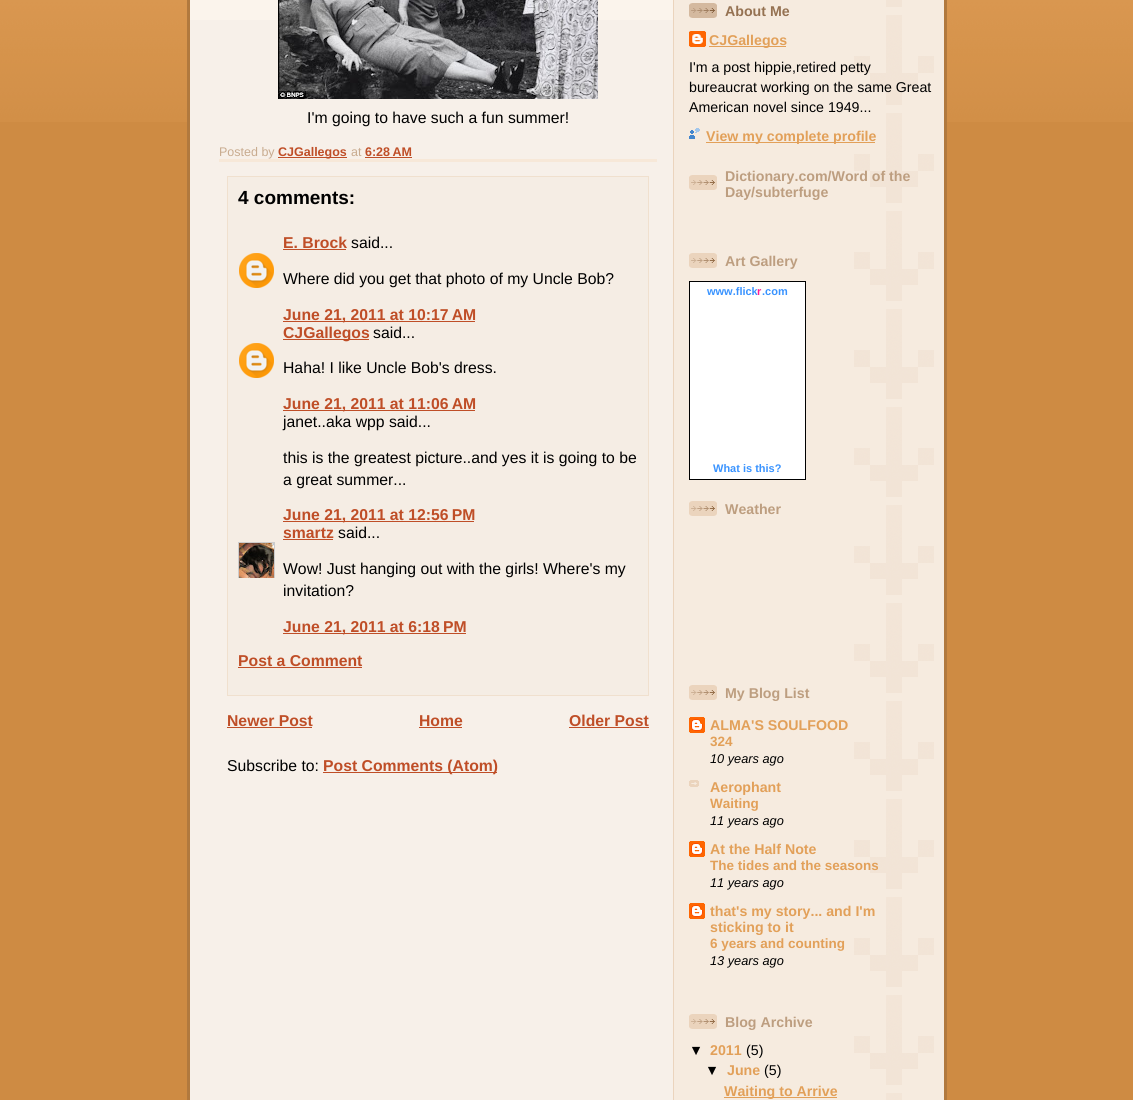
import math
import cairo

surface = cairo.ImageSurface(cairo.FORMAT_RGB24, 1133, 1100)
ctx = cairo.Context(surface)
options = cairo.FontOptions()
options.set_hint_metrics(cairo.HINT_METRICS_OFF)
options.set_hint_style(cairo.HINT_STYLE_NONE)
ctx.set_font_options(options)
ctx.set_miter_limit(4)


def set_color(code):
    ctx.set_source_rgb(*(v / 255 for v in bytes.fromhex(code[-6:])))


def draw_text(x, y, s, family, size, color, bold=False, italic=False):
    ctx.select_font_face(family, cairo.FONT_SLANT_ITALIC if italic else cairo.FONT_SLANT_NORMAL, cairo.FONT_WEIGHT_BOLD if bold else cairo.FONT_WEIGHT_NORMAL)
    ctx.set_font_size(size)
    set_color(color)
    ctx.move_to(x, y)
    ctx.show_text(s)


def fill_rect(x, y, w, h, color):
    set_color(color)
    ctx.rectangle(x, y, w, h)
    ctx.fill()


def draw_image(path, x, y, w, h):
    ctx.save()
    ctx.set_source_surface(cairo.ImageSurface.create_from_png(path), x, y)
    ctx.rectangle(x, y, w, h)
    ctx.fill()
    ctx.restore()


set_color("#ce8b43")
ctx.paint()
draw_image("assets/img1.png", 0, 0, 1133, 122)
draw_image("assets/img2.png", 187, 0, 760, 1100)
fill_rect(190, 0, 483, 20, "#fbf4ec")
fill_rect(219, 159, 438, 3, "#f7e8d8")
draw_image("assets/img3.png", 278, 0, 320, 99)
draw_text(307, 123, "I'm going to have such a fun summer!", "Liberation Sans", 15.75, "#000000")
draw_text(219, 156, "Posted by", "Liberation Sans", 12.5, "#c8ab8f")
fill_rect(278, 157, 69, 1, "#bf4e27")
draw_text(278, 156, "CJGallegos", "Liberation Sans", 12.5, "#bf4e27", bold=True)
draw_text(351, 156, "at", "Liberation Sans", 12.5, "#c8ab8f")
draw_text(365, 156, "6:28 AM", "Liberation Sans", 12.5, "#bf4e27", bold=True)
fill_rect(365, 157, 47, 1, "#bf4e27")
set_color("#f5ede4")
ctx.rectangle(227.5, 176.5, 421, 519)
ctx.fill_preserve()
set_color("#f0e0ce")
ctx.set_line_width(1)
ctx.stroke()
draw_text(238, 204, "4 comments:", "Liberation Sans", 19, "#000000", bold=True)
draw_text(283, 248, "E. Brock", "Liberation Sans", 15.75, "#bf4e27", bold=True)
fill_rect(283, 249, 63, 1, "#bf4e27")
draw_text(351, 248, "said...", "Liberation Sans", 15.75, "#000000")
draw_image("assets/img4.png", 239, 253, 35, 35)
draw_text(283, 284, "Where did you get that photo of my Uncle Bob?", "Liberation Sans", 15.75, "#000000")
fill_rect(283, 321, 192, 1, "#bf4e27")
draw_text(283, 320, "June 21, 2011 at 10:17 AM", "Liberation Sans", 15.75, "#bf4e27", bold=True)
fill_rect(283, 339, 86, 1, "#bf4e27")
draw_text(283, 338, "CJGallegos", "Liberation Sans", 15.75, "#bf4e27", bold=True)
draw_text(373, 338, "said...", "Liberation Sans", 15.75, "#000000")
draw_image("assets/img4.png", 239, 343, 35, 35)
draw_text(283, 373, "Haha! I like Uncle Bob's dress.", "Liberation Sans", 15.75, "#000000")
fill_rect(283, 410, 192, 1, "#bf4e27")
draw_text(283, 409, "June 21, 2011 at 11:06 AM", "Liberation Sans", 15.75, "#bf4e27", bold=True)
draw_text(283, 427, "janet..aka wpp said...", "Liberation Sans", 15.75, "#000000")
draw_text(283, 463, "this is the greatest picture..and yes it is going to be", "Liberation Sans", 15.75, "#000000")
draw_text(283, 485, "a great summer...", "Liberation Sans", 15.75, "#000000")
fill_rect(283, 521, 191, 1, "#bf4e27")
draw_text(283, 520, "June 21, 2011 at 12:56 PM", "Liberation Sans", 15.75, "#bf4e27", bold=True)
draw_text(283, 538, "smartz", "Liberation Sans", 15.75, "#bf4e27", bold=True)
fill_rect(283, 539, 50, 1, "#bf4e27")
draw_text(338, 538, "said...", "Liberation Sans", 15.75, "#000000")
ctx.save()
ctx.rectangle(238, 542, 37, 36)
ctx.clip()
ctx.rectangle(238.5, 542.5, 36, 36)
set_color("#cccccc")
ctx.stroke()
ctx.restore()
draw_image("assets/img5.png", 239, 543, 35, 35)
draw_text(283, 574, "Wow! Just hanging out with the girls! Where's my", "Liberation Sans", 15.75, "#000000")
draw_text(283, 596, "invitation?", "Liberation Sans", 15.75, "#000000")
fill_rect(283, 633, 183, 1, "#bf4e27")
draw_text(283, 632, "June 21, 2011 at 6:18 PM", "Liberation Sans", 15.75, "#bf4e27", bold=True)
draw_text(238, 666, "Post a Comment", "Liberation Sans", 15.75, "#bf4e27", bold=True)
fill_rect(238, 667, 124, 1, "#bf4e27")
draw_text(227, 726, "Newer Post", "Liberation Sans", 15.75, "#bf4e27", bold=True)
fill_rect(227, 727, 85, 1, "#bf4e27")
draw_text(419, 726, "Home", "Liberation Sans", 15.75, "#bf4e27", bold=True)
fill_rect(419, 727, 43, 1, "#bf4e27")
draw_text(569, 726, "Older Post", "Liberation Sans", 15.75, "#bf4e27", bold=True)
fill_rect(569, 727, 80, 1, "#bf4e27")
draw_text(227, 771, "Subscribe to:", "Liberation Sans", 15.75, "#000000")
fill_rect(323, 772, 174, 1, "#bf4e27")
draw_text(323, 771, "Post Comments (Atom)", "Liberation Sans", 15.75, "#bf4e27", bold=True)
draw_image("assets/img6.png", 854, 0, 80, 1100)
draw_image("assets/img7.png", 689, 3, 28, 15)
draw_text(725, 16, "About Me", "Liberation Sans", 14.2, "#957252", bold=True)
draw_image("assets/img8.png", 689, 31, 17, 16)
fill_rect(709, 46, 77, 1, "#e2a059")
draw_text(709, 45, "CJGallegos", "Liberation Sans", 14.2, "#e2a059", bold=True)
draw_text(689, 72, "I'm a post hippie,retired petty", "Liberation Sans", 14.2, "#000000")
draw_text(689, 92, "bureaucrat working on the same Great", "Liberation Sans", 14.2, "#000000")
draw_text(689, 112, "American novel since 1949...", "Liberation Sans", 14.2, "#000000")
draw_image("assets/img9.png", 689, 128, 11, 11)
fill_rect(706, 142, 169, 1, "#e2a059")
draw_text(706, 141, "View my complete profile", "Liberation Sans", 14.2, "#e2a059", bold=True)
draw_image("assets/img10.png", 689, 175, 28, 15)
draw_text(725, 181, "Dictionary.com/Word of the", "Liberation Sans", 14.2, "#bd9e80", bold=True)
draw_text(725, 197, "Day/subterfuge", "Liberation Sans", 14.2, "#bd9e80", bold=True)
draw_image("assets/img10.png", 689, 253, 28, 15)
draw_text(725, 266, "Art Gallery", "Liberation Sans", 14.2, "#bd9e80", bold=True)
set_color("#ffffff")
ctx.rectangle(689.5, 281.5, 116, 198)
ctx.fill_preserve()
set_color("#000000")
ctx.stroke()
draw_text(707, 295, "www.flick", "Liberation Sans", 11, "#3993ff", bold=True)
draw_text(757, 295, "r", "Liberation Sans", 11, "#ff1c92", bold=True)
draw_text(762, 295, ".com", "Liberation Sans", 11, "#3993ff", bold=True)
draw_text(713, 472, "What is this?", "Liberation Sans", 11, "#3993ff", bold=True)
draw_image("assets/img10.png", 689, 501, 28, 15)
draw_text(725, 514, "Weather", "Liberation Sans", 14.2, "#bd9e80", bold=True)
draw_image("assets/img10.png", 689, 685, 28, 15)
draw_text(725, 698, "My Blog List", "Liberation Sans", 14.2, "#bd9e80", bold=True)
draw_image("assets/img11.png", 689, 717, 16, 16)
draw_text(710, 730, "ALMA'S SOULFOOD", "Liberation Sans", 14.2, "#e2a059", bold=True)
draw_text(710, 746, "324", "Liberation Sans", 13.5, "#e2a059", bold=True)
draw_text(710, 763, "10 years ago", "Liberation Sans", 12.75, "#000000", italic=True)
draw_image("assets/img12.png", 689, 780, 10, 7)
draw_text(710, 792, "Aerophant", "Liberation Sans", 14.2, "#e2a059", bold=True)
draw_text(710, 808, "Waiting", "Liberation Sans", 13.5, "#e2a059", bold=True)
draw_text(710, 825, "11 years ago", "Liberation Sans", 12.75, "#000000", italic=True)
draw_image("assets/img11.png", 689, 841, 16, 16)
draw_text(710, 854, "At the Half Note", "Liberation Sans", 14.2, "#e2a059", bold=True)
draw_text(710, 870, "The tides and the seasons", "Liberation Sans", 13.5, "#e2a059", bold=True)
draw_text(710, 887, "11 years ago", "Liberation Sans", 12.75, "#000000", italic=True)
draw_image("assets/img11.png", 689, 903, 16, 16)
draw_text(710, 916, "that's my story... and I'm", "Liberation Sans", 14.2, "#e2a059", bold=True)
draw_text(710, 932, "sticking to it", "Liberation Sans", 14.2, "#e2a059", bold=True)
draw_text(710, 948, "6 years and counting", "Liberation Sans", 13.5, "#e2a059", bold=True)
draw_text(710, 965, "13 years ago", "Liberation Sans", 12.75, "#000000", italic=True)
draw_image("assets/img10.png", 689, 1014, 28, 15)
draw_text(725, 1027, "Blog Archive", "Liberation Sans", 14.2, "#bd9e80", bold=True)
draw_text(689, 1055, "▼", "Liberation Sans", 14.2, "#000000", bold=True)
draw_text(710, 1055, "2011", "Liberation Sans", 14.2, "#e2a059", bold=True)
draw_text(746, 1055, "(5)", "Liberation Sans", 14.2, "#000000")
draw_text(705, 1075, "▼", "Liberation Sans", 14.2, "#000000", bold=True)
draw_text(727, 1075, "June", "Liberation Sans", 14.2, "#e2a059", bold=True)
draw_text(764, 1075, "(5)", "Liberation Sans", 14.2, "#000000")
fill_rect(724, 1097, 113, 1, "#e2a059")
draw_text(724, 1096, "Waiting to Arrive", "Liberation Sans", 14.2, "#e2a059", bold=True)
surface.write_to_png("output.png")
